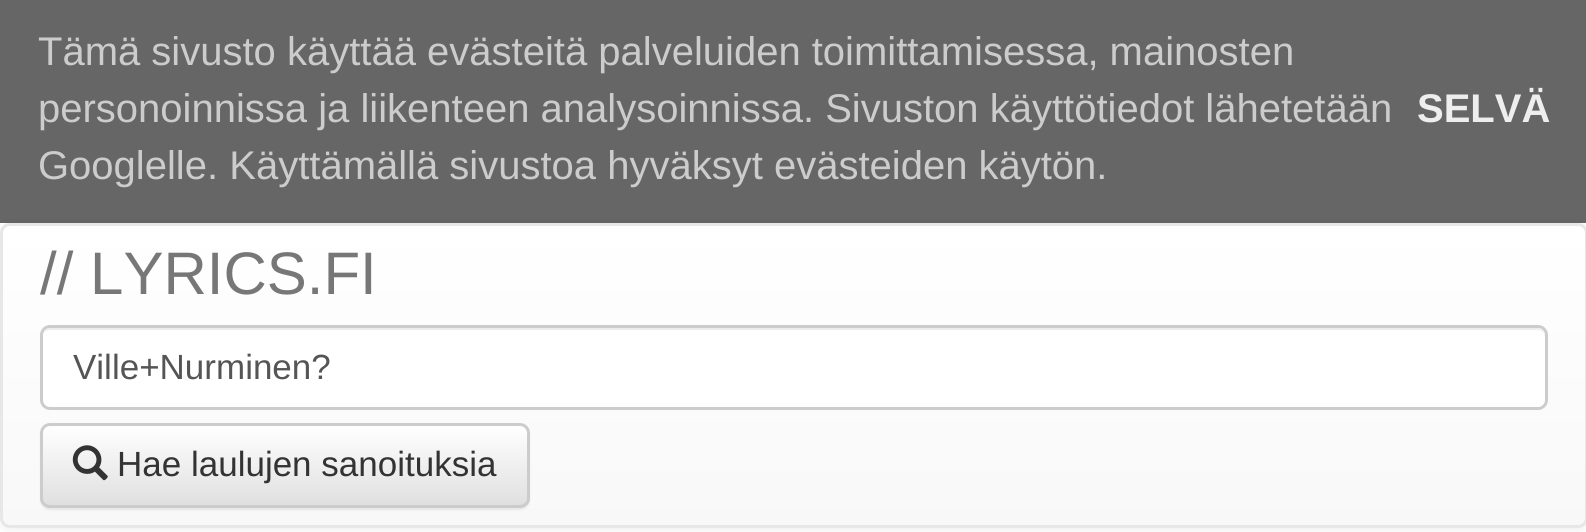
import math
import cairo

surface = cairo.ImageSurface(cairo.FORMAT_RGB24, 1586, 532)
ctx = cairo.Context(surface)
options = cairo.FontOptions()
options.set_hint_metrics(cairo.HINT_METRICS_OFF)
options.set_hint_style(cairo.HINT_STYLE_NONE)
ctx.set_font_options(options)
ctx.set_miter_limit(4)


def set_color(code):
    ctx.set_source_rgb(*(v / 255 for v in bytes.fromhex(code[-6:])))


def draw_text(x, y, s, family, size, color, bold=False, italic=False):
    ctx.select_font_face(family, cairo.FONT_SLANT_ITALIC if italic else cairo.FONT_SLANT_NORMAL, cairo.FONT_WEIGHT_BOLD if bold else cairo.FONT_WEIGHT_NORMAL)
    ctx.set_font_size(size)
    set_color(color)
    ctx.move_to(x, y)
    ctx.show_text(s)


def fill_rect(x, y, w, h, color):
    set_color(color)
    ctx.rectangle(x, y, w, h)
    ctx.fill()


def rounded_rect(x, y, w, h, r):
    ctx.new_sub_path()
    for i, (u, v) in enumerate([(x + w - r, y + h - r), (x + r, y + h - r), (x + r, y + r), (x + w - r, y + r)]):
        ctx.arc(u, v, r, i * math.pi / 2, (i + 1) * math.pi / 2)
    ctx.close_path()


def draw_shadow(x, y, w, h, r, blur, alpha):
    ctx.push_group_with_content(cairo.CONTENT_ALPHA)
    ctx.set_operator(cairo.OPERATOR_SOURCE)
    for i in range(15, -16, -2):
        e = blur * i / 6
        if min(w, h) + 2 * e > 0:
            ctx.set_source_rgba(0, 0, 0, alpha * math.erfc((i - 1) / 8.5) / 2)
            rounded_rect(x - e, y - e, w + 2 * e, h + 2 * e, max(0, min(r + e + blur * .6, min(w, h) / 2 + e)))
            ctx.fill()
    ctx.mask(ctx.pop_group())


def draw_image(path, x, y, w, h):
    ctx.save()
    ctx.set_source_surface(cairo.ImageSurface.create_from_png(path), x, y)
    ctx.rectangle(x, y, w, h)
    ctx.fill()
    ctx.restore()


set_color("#ffffff")
ctx.paint()
fill_rect(0, 0, 1586, 223, "#666666")
draw_text(38, 65, "Tämä sivusto käyttää evästeitä palveluiden toimittamisessa, mainosten", "Liberation Sans", 40, "#cccccc")
draw_text(38, 122, "personoinnissa ja liikenteen analysoinnissa. Sivuston käyttötiedot lähetetään", "Liberation Sans", 40, "#cccccc")
draw_text(38, 179, "Googlelle. Käyttämällä sivustoa hyväksyt evästeiden käytön.", "Liberation Sans", 40, "#cccccc")
draw_text(1417, 122, "SELVÄ", "Liberation Sans", 40, "#eeeeee", bold=True)
set_color("#000000")
draw_shadow(0, 225, 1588, 305, 10, 6, 0.07)
ctx.save()
rounded_rect(0, 223, 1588, 305, 10)
ctx.clip()
gradient = cairo.LinearGradient(794, 225, 794, 525)
gradient.add_color_stop_rgba(0, 1, 1, 1, 1)
gradient.add_color_stop_rgba(1, 0.973, 0.973, 0.973, 1)
ctx.set_source(gradient)
ctx.rectangle(0, 225, 1586, 300)
ctx.fill()
ctx.restore()
rounded_rect(1.5, 224.5, 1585, 302, 8.5)
set_color("#e7e7e7")
ctx.set_line_width(3)
ctx.stroke()
draw_text(40, 294, "// LYRICS.FI", "Liberation Sans", 60, "#777777")
set_color("#ffffff")
rounded_rect(40, 325, 1508, 85, 10)
ctx.fill()
set_color("#ececec")
ctx.new_path()
ctx.move_to(50, 330)
ctx.line_to(1538, 330)
ctx.curve_to(1542, 330, 1545, 333, 1545, 338)
ctx.line_to(1545, 336)
ctx.curve_to(1545, 332, 1541, 328, 1537, 328)
ctx.line_to(51, 328)
ctx.curve_to(48, 328, 45, 330, 43, 333)
ctx.curve_to(45, 331, 48, 330, 50, 330)
ctx.close_path()
ctx.fill()
rounded_rect(41.5, 326.5, 1505, 82, 8.5)
set_color("#cccccc")
ctx.stroke()
draw_text(73, 379, "Ville+Nurminen?", "Liberation Sans", 35, "#555555")
set_color("#000000")
draw_shadow(40, 425, 490, 85, 10, 1, 0.07)
ctx.save()
rounded_rect(40, 423, 490, 85, 10)
ctx.clip()
gradient = cairo.LinearGradient(285, 425, 285, 505)
gradient.add_color_stop_rgba(0, 1, 1, 1, 1)
gradient.add_color_stop_rgba(1, 0.878, 0.878, 0.878, 1)
ctx.set_source(gradient)
ctx.rectangle(40, 425, 490, 80)
ctx.fill()
ctx.restore()
rounded_rect(41.5, 424.5, 487, 82, 8.5)
set_color("#cccccc")
ctx.stroke()
draw_image("assets/img1.png", 72, 445, 36, 36)
draw_text(117, 476, "Hae laulujen sanoituksia", "Liberation Sans", 35, "#333333")
surface.write_to_png("output.png")
